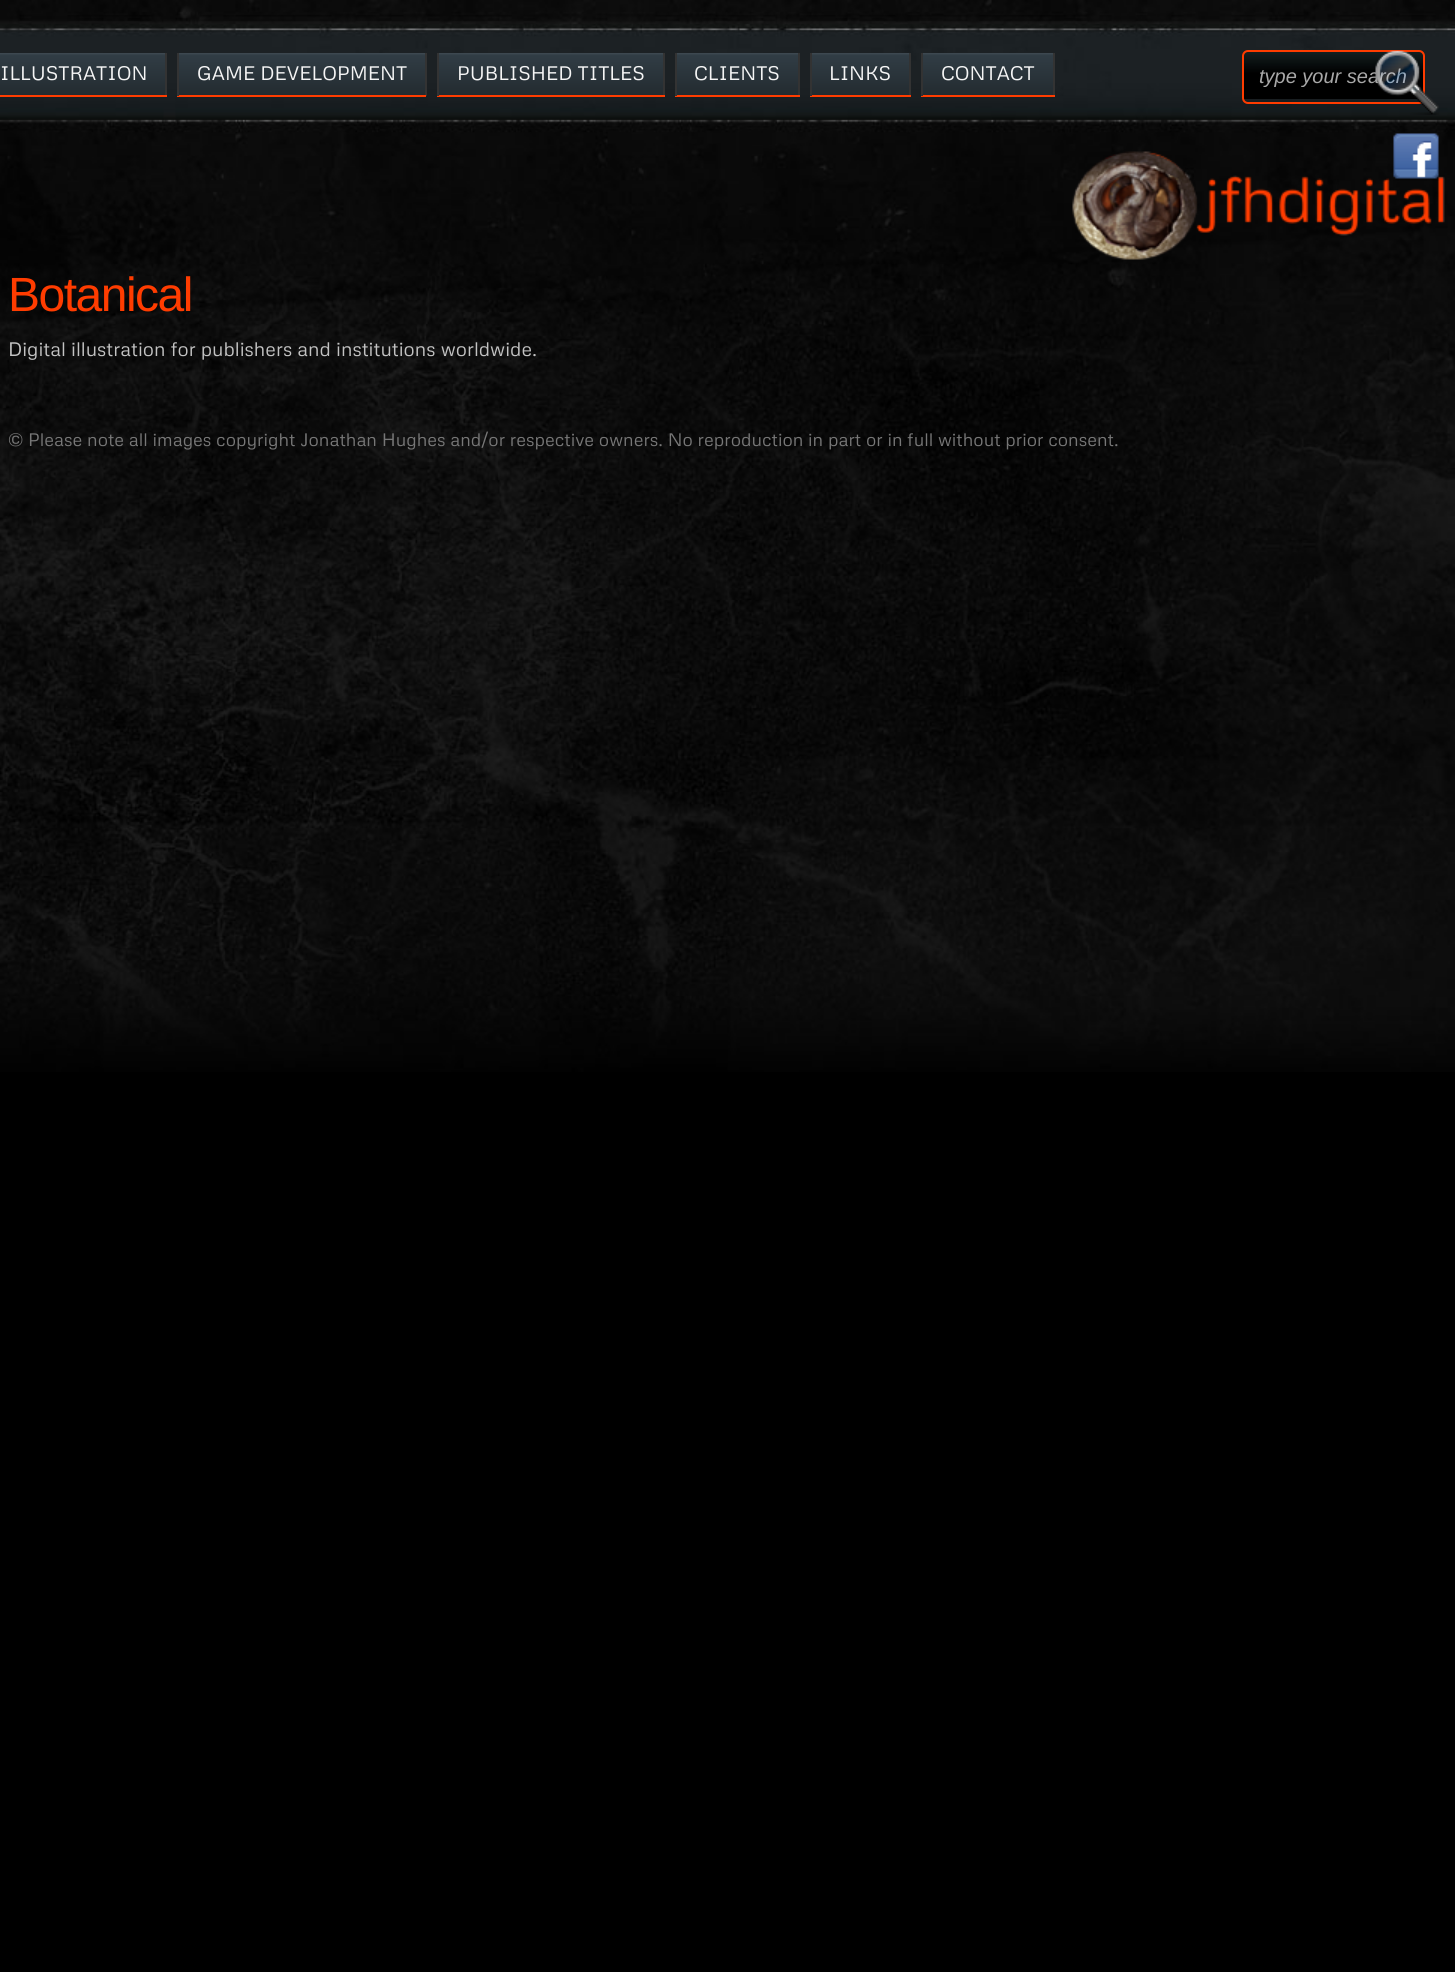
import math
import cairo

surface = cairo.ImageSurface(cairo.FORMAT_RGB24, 1455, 1972)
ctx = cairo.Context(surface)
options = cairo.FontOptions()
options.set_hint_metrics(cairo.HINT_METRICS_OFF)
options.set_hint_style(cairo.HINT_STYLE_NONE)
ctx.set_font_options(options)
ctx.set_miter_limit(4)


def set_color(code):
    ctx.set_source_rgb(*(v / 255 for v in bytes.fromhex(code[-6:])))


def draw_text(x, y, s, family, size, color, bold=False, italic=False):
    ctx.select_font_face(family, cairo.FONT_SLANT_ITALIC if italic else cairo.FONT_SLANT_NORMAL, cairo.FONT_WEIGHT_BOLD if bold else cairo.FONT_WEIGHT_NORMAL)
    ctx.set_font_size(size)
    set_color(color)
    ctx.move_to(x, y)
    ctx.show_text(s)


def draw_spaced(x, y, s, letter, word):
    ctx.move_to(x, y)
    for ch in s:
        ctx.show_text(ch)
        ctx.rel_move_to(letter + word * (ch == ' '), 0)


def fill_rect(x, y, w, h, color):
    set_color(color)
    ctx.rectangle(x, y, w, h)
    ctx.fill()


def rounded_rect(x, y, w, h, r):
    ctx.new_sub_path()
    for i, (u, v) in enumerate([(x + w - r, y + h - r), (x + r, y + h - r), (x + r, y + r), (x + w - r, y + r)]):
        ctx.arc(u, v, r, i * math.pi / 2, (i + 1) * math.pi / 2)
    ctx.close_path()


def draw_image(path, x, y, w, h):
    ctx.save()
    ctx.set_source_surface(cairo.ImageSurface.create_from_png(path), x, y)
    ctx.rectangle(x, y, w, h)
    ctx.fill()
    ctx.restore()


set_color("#000000")
ctx.paint()
draw_image("assets/img1.png", 0, 506, 1455, 566)
draw_image("assets/img2.png", 0, 0, 1455, 506)
gradient = cairo.LinearGradient(-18, 53, -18, 95)
gradient.add_color_stop_rgba(0.03, 0.239, 0.282, 0.314, 1)
gradient.add_color_stop_rgba(0.04, 0.192, 0.239, 0.271, 1)
gradient.add_color_stop_rgba(1, 0.137, 0.169, 0.188, 1)
ctx.set_source(gradient)
ctx.rectangle(0, 53, 165, 42)
ctx.fill()
fill_rect(165, 53, 2, 43, "#333333")
fill_rect(0, 95, 167, 2, "#ff3c00")
draw_text(0, 80, "ILLUSTRATION", "Metrophobic", 19.5, "#f5f5f5")
gradient = cairo.LinearGradient(179, 53, 179, 95)
gradient.add_color_stop_rgba(0.03, 0.239, 0.282, 0.314, 1)
gradient.add_color_stop_rgba(0.04, 0.192, 0.239, 0.271, 1)
gradient.add_color_stop_rgba(1, 0.137, 0.169, 0.188, 1)
ctx.set_source(gradient)
ctx.rectangle(179, 53, 246, 42)
ctx.fill()
fill_rect(425, 53, 2, 43, "#333333")
fill_rect(177, 95, 249, 2, "#ff3c00")
fill_rect(177, 53, 2, 43, "#333333")
draw_text(197, 80, "GAME DEVELOPMENT", "Metrophobic", 19.5, "#f5f5f5")
gradient = cairo.LinearGradient(438, 53, 438, 95)
gradient.add_color_stop_rgba(0.03, 0.239, 0.282, 0.314, 1)
gradient.add_color_stop_rgba(0.04, 0.192, 0.239, 0.271, 1)
gradient.add_color_stop_rgba(1, 0.137, 0.169, 0.188, 1)
ctx.set_source(gradient)
ctx.rectangle(439, 53, 224, 42)
ctx.fill()
fill_rect(663, 53, 2, 43, "#333333")
fill_rect(437, 95, 228, 2, "#ff3c00")
fill_rect(437, 53, 2, 43, "#333333")
draw_text(457, 80, "PUBLISHED TITLES", "Metrophobic", 19.5, "#f5f5f5")
gradient = cairo.LinearGradient(677, 53, 677, 95)
gradient.add_color_stop_rgba(0.03, 0.239, 0.282, 0.314, 1)
gradient.add_color_stop_rgba(0.04, 0.192, 0.239, 0.271, 1)
gradient.add_color_stop_rgba(1, 0.137, 0.169, 0.188, 1)
ctx.set_source(gradient)
ctx.rectangle(677, 53, 121, 42)
ctx.fill()
fill_rect(798, 53, 2, 43, "#333333")
fill_rect(675, 95, 125, 2, "#ff3c00")
fill_rect(675, 53, 2, 43, "#333333")
draw_text(694, 80, "CLIENTS", "Metrophobic", 19.5, "#f5f5f5")
gradient = cairo.LinearGradient(812, 53, 812, 95)
gradient.add_color_stop_rgba(0.03, 0.239, 0.282, 0.314, 1)
gradient.add_color_stop_rgba(0.04, 0.192, 0.239, 0.271, 1)
gradient.add_color_stop_rgba(1, 0.137, 0.169, 0.188, 1)
ctx.set_source(gradient)
ctx.rectangle(812, 53, 97, 42)
ctx.fill()
fill_rect(909, 53, 2, 43, "#333333")
fill_rect(810, 95, 101, 2, "#ff3c00")
fill_rect(810, 53, 2, 43, "#333333")
draw_text(829, 80, "LINKS", "Metrophobic", 19.5, "#f5f5f5")
gradient = cairo.LinearGradient(923, 53, 923, 95)
gradient.add_color_stop_rgba(0.03, 0.239, 0.282, 0.314, 1)
gradient.add_color_stop_rgba(0.04, 0.192, 0.239, 0.271, 1)
gradient.add_color_stop_rgba(1, 0.137, 0.169, 0.188, 1)
ctx.set_source(gradient)
ctx.rectangle(923, 53, 130, 42)
ctx.fill()
fill_rect(1053, 53, 2, 43, "#333333")
fill_rect(921, 95, 134, 2, "#ff3c00")
fill_rect(921, 53, 2, 43, "#333333")
draw_text(941, 80, "CONTACT", "Metrophobic", 19.5, "#f5f5f5")
draw_image("assets/img3.png", 1242, 51, 183, 48)
rounded_rect(1243, 51, 181, 52, 5)
set_color("#ff3c00")
ctx.stroke()
ctx.save()
ctx.rectangle(1259, 65, 150, 22)
ctx.clip()
draw_text(1259, 83, "type your search", "Liberation Sans", 20, "#a8a8a8", italic=True)
ctx.restore()
draw_image("assets/img4.png", 1375, 50, 64, 65)
draw_image("assets/img6.png", 1072, 151, 373, 109)
draw_image("assets/img5.png", 1393, 133, 47, 48)
ctx.select_font_face("Liberation Sans")
ctx.set_font_size(48)
draw_spaced(8, 311, "Botanical", -1.5, 0)
draw_text(8, 356, "Digital illustration for publishers and institutions worldwide.", "Metrophobic", 19.5, "#c3c3c3")
draw_text(8, 446, "© Please note all images copyright Jonathan Hughes and/or respective owners. No reproduction in part or in full without prior consent.", "Metrophobic", 18, "#777777")
surface.write_to_png("output.png")
